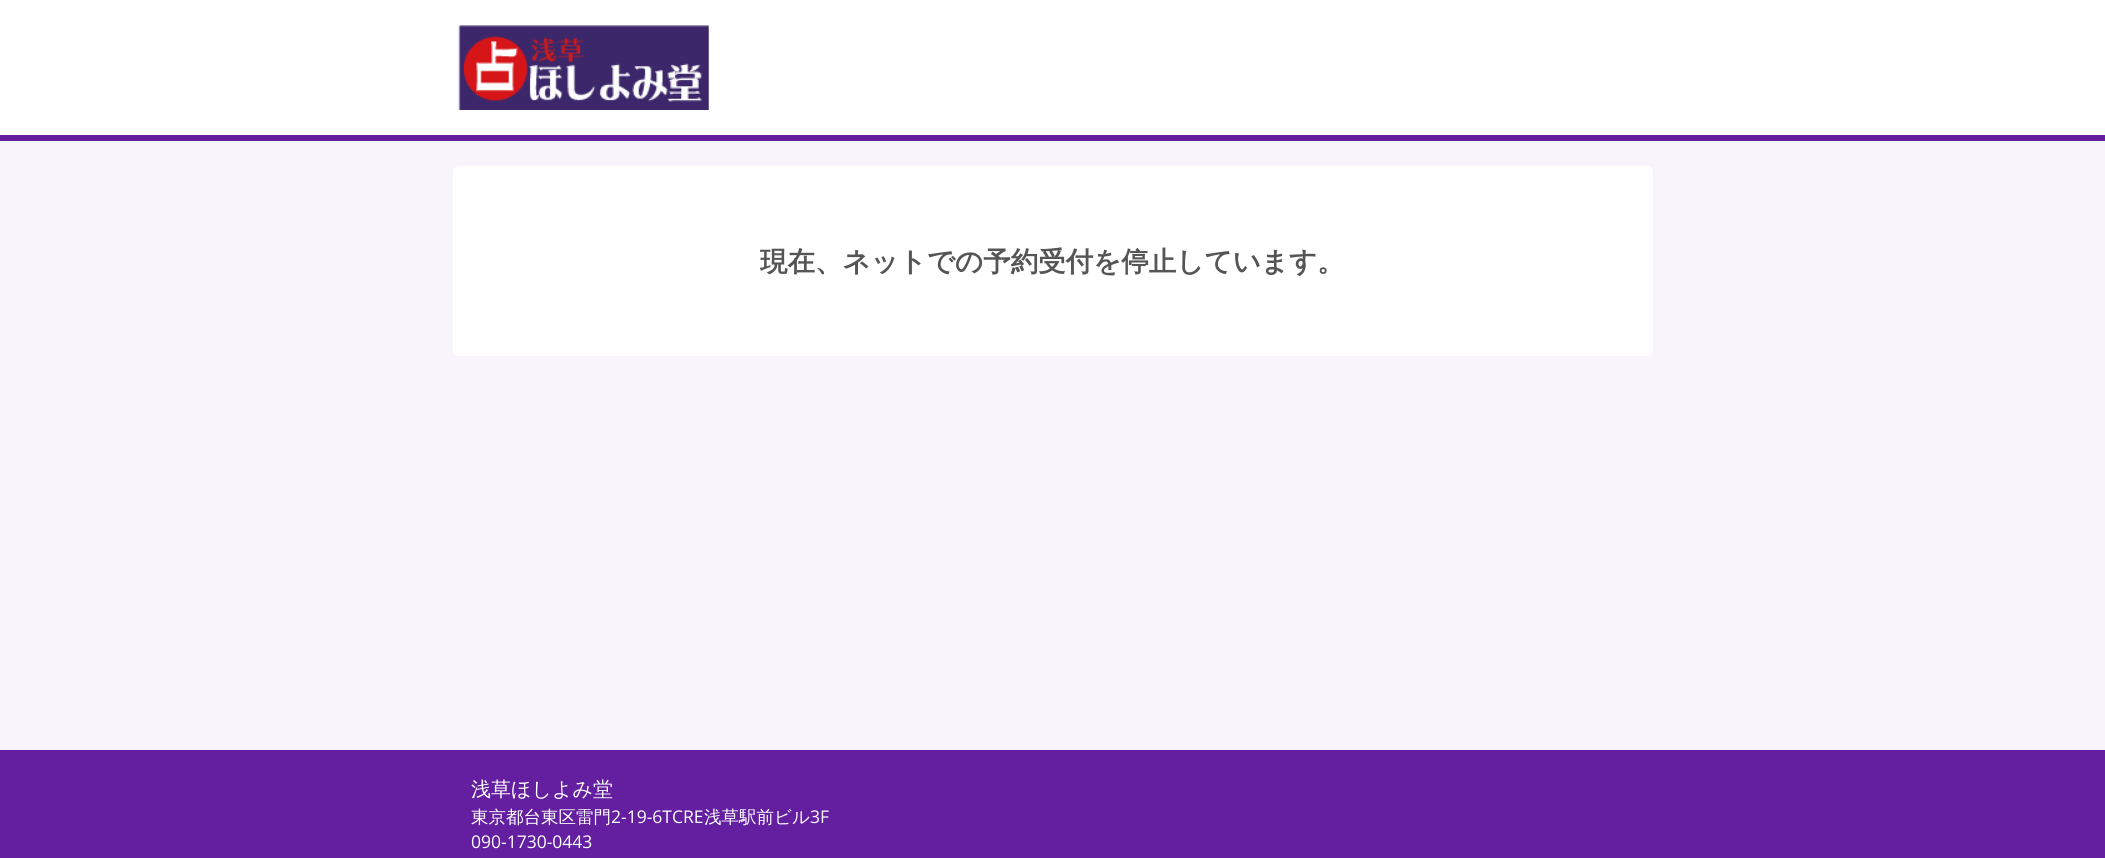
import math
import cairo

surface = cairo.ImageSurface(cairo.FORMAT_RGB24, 2105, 858)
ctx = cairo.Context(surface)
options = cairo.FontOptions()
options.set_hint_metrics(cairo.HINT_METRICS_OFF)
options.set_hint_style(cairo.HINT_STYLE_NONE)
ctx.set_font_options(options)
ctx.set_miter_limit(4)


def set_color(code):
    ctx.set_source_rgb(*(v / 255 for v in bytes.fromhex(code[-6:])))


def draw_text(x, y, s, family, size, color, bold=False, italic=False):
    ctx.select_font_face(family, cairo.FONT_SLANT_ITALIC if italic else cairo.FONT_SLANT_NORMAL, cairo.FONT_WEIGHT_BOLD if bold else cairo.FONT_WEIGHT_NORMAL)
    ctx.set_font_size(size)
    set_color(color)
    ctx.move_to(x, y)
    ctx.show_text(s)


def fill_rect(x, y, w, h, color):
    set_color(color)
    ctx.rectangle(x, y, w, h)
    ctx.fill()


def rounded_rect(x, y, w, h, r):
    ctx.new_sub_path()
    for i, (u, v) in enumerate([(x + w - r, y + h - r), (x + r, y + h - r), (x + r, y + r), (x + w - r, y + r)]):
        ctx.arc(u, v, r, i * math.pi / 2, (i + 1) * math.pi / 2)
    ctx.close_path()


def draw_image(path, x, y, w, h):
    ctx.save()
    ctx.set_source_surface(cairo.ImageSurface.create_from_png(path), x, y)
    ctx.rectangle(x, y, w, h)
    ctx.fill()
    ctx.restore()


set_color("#ffffff")
ctx.paint()
fill_rect(0, 135, 2105, 6, "#641ea0")
draw_image("assets/img1.png", 458, 25, 251, 85)
fill_rect(0, 141, 2105, 609, "#f8f4fb")
set_color("#ffffff")
rounded_rect(453, 166, 1200, 190, 6)
ctx.fill()
draw_text(760, 271, "現在、ネットでの予約受付を停止しています。", "WenQuanYi Zen Hei", 27.5, "#555555", bold=True)
fill_rect(0, 750, 2105, 108, "#641ea0")
draw_text(471, 796, "浅草ほしよみ堂", "WenQuanYi Zen Hei Medium", 20, "#ffffff")
draw_text(471, 823, "東京都台東区雷門", "WenQuanYi Zen Hei Medium", 17.5, "#ffffff")
draw_text(611, 823, "2-19-6TCRE", "Open Sans", 17.5, "#ffffff")
draw_text(704, 823, "浅草駅前ビル", "WenQuanYi Zen Hei Medium", 17.5, "#ffffff")
draw_text(810, 823, "3F", "Open Sans", 17.5, "#ffffff")
draw_text(471, 848, "090-1730-0443", "Open Sans", 17.5, "#ffffff")
surface.write_to_png("output.png")
